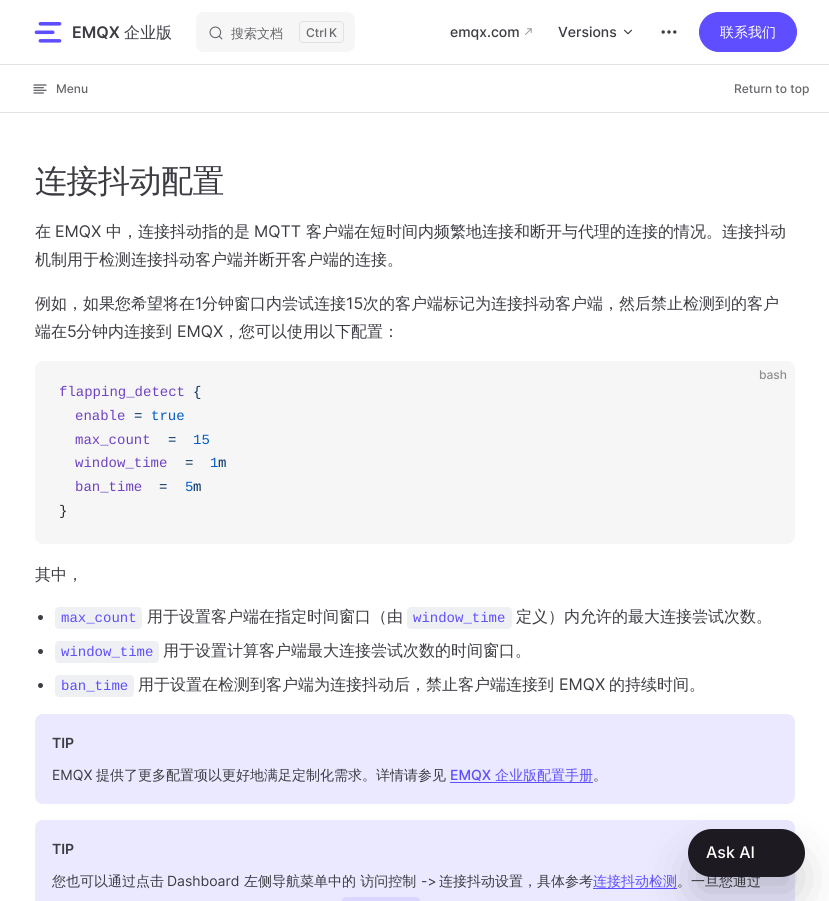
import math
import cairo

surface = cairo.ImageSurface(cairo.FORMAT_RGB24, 829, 901)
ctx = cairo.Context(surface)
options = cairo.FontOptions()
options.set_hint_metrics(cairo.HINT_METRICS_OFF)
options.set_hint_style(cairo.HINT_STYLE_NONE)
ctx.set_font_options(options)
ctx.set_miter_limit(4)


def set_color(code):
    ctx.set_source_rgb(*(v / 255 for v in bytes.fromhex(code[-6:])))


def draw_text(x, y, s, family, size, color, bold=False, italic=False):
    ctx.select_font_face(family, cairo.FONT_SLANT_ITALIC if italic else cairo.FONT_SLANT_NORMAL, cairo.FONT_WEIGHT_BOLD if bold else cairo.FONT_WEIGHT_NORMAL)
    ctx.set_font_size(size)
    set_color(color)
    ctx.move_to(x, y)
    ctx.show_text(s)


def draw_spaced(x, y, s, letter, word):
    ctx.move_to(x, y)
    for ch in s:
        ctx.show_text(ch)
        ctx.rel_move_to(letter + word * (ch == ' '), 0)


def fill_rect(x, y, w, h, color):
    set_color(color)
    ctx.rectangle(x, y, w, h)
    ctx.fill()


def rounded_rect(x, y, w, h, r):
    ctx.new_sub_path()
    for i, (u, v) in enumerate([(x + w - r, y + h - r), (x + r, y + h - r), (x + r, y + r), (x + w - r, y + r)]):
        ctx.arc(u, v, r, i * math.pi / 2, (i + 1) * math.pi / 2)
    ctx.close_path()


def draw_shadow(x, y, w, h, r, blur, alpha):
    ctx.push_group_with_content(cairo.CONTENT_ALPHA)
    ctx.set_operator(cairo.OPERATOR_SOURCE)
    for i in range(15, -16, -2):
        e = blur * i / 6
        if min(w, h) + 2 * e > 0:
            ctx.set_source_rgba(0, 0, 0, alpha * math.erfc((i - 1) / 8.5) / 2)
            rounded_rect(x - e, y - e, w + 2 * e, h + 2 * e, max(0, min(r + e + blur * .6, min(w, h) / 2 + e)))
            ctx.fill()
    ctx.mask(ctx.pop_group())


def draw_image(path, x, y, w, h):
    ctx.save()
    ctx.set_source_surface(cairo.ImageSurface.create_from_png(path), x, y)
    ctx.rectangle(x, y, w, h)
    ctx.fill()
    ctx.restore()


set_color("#ffffff")
ctx.paint()
draw_image("assets/img1.png", 34, 22, 28, 21)
draw_text(72, 38, "EMQX", "Inter SemiBold", 16, "#3c3c43")
draw_text(124, 38, "企业版", "WenQuanYi Zen Hei Medium", 16, "#3c3c43")
set_color("#f6f6f7")
rounded_rect(196, 12, 159, 40, 8)
ctx.fill()
draw_image("assets/img2.png", 209, 26, 14, 14)
draw_text(231, 38, "搜索文档", "WenQuanYi Zen Hei Medium", 13, "#67676c")
set_color("#e2e2e3")
ctx.set_fill_rule(cairo.FILL_RULE_EVEN_ODD)
ctx.new_path()
ctx.move_to(303, 21)
ctx.line_to(327, 21)
ctx.line_to(327, 43)
ctx.line_to(303, 43)
ctx.curve_to(301, 43, 299, 41, 299, 39)
ctx.line_to(299, 25)
ctx.curve_to(299, 23, 301, 21, 303, 21)
ctx.close_path()
ctx.move_to(303, 22)
ctx.line_to(327, 22)
ctx.line_to(327, 42)
ctx.line_to(303, 42)
ctx.curve_to(301.5, 42, 300, 40.5, 300, 39)
ctx.line_to(300, 25)
ctx.curve_to(300, 23.5, 301.5, 22, 303, 22)
ctx.close_path()
ctx.fill()
draw_text(306, 37, "Ctrl", "Inter Medium", 12, "#67676c")
set_color("#e2e2e3")
ctx.new_path()
ctx.move_to(327, 21)
ctx.line_to(340, 21)
ctx.curve_to(342, 21, 344, 23, 344, 25)
ctx.line_to(344, 39)
ctx.curve_to(344, 41, 342, 43, 340, 43)
ctx.line_to(327, 43)
ctx.close_path()
ctx.move_to(327, 22)
ctx.line_to(340, 22)
ctx.curve_to(341.5, 22, 343, 23.5, 343, 25)
ctx.line_to(343, 39)
ctx.curve_to(343, 40.5, 341.5, 42, 340, 42)
ctx.line_to(327, 42)
ctx.close_path()
ctx.fill()
draw_text(329, 37, "K", "Inter Medium", 12, "#67676c")
draw_text(450, 37, "emqx.com", "Inter Medium", 14, "#3c3c43")
draw_image("assets/img3.png", 525, 28, 7, 7)
draw_text(558, 37, "Versions", "Inter Medium", 14, "#3c3c43")
draw_image("assets/img4.png", 624, 29, 8, 6)
ctx.arc(669, 32, 1.7, 0, 2 * math.pi)
ctx.fill()
ctx.arc(674.8, 32, 1.7, 0, 2 * math.pi)
ctx.fill()
ctx.arc(663.2, 32, 1.7, 0, 2 * math.pi)
ctx.fill()
set_color("#5e4eff")
rounded_rect(699.5, 12.5, 97, 39, 19.5)
ctx.fill_preserve()
ctx.set_line_width(1)
ctx.stroke()
draw_text(720, 37, "联系我们", "WenQuanYi Zen Hei Medium", 14, "#ffffff")
fill_rect(0, 64, 829, 1, "#e2e2e3")
fill_rect(0, 112, 829, 1, "#e2e2e3")
draw_image("assets/img5.png", 33, 84, 14, 10)
draw_text(56, 93, "Menu", "Inter Medium", 12, "#67676c")
draw_text(734, 93, "Return to top", "Inter Medium", 12, "#67676c")
ctx.select_font_face("WenQuanYi Zen Hei Medium")
ctx.set_font_size(32)
set_color("#3c3c43")
draw_spaced(35, 192, "连接抖动配置", -0.5, 0)
draw_text(35, 237, "在", "WenQuanYi Zen Hei Medium", 16, "#3c3c43")
draw_text(55, 237, "EMQX", "Inter", 16, "#3c3c43")
draw_text(106, 237, "中，连接抖动指的是", "WenQuanYi Zen Hei Medium", 16, "#3c3c43")
draw_text(254, 237, "MQTT", "Inter", 16, "#3c3c43")
draw_text(306, 237, "客户端在短时间内频繁地连接和断开与代理的连接的情况。连接抖动", "WenQuanYi Zen Hei Medium", 16, "#3c3c43")
draw_text(35, 265, "机制用于检测连接抖动客户端并断开客户端的连接。", "WenQuanYi Zen Hei Medium", 16, "#3c3c43")
draw_text(35, 309, "例如，如果您希望将在", "WenQuanYi Zen Hei Medium", 16, "#3c3c43")
draw_text(195, 309, "1", "Inter", 16, "#3c3c43")
draw_text(202, 309, "分钟窗口内尝试连接", "WenQuanYi Zen Hei Medium", 16, "#3c3c43")
draw_text(346, 309, "15", "Inter", 16, "#3c3c43")
draw_text(363, 309, "次的客户端标记为连接抖动客户端，然后禁止检测到的客户", "WenQuanYi Zen Hei Medium", 16, "#3c3c43")
draw_text(35, 337, "端在", "WenQuanYi Zen Hei Medium", 16, "#3c3c43")
draw_text(67, 337, "5", "Inter", 16, "#3c3c43")
draw_text(76, 337, "分钟内连接到", "WenQuanYi Zen Hei Medium", 16, "#3c3c43")
draw_text(177, 337, "EMQX", "Inter", 16, "#3c3c43")
draw_text(223, 337, "，您可以使用以下配置：", "WenQuanYi Zen Hei Medium", 16, "#3c3c43")
set_color("#f6f6f7")
rounded_rect(35, 361, 760, 183, 8)
ctx.fill()
draw_text(759, 379, "bash", "Inter Medium", 12, "#8e8e92")
draw_text(59, 396, "flapping_detect", "Liberation Mono", 14, "#6f42c1")
draw_text(193, 396, "{", "Liberation Mono", 14, "#032f62")
draw_text(75, 420, "enable", "Liberation Mono", 14, "#6f42c1")
draw_text(134, 420, "=", "Liberation Mono", 14, "#032f62")
draw_text(151, 420, "true", "Liberation Mono", 14, "#005cc5")
draw_text(75, 444, "max_count", "Liberation Mono", 14, "#6f42c1")
draw_text(168, 444, "=", "Liberation Mono", 14, "#032f62")
draw_text(193, 444, "15", "Liberation Mono", 14, "#005cc5")
draw_text(75, 467, "window_time", "Liberation Mono", 14, "#6f42c1")
draw_text(185, 467, "=", "Liberation Mono", 14, "#032f62")
draw_text(210, 467, "1", "Liberation Mono", 14, "#005cc5")
draw_text(218, 467, "m", "Liberation Mono", 14, "#032f62")
draw_text(75, 491, "ban_time", "Liberation Mono", 14, "#6f42c1")
draw_text(159, 491, "=", "Liberation Mono", 14, "#032f62")
draw_text(185, 491, "5", "Liberation Mono", 14, "#005cc5")
draw_text(193, 491, "m", "Liberation Mono", 14, "#032f62")
draw_text(59, 515, "}", "Liberation Mono", 14, "#24292e")
draw_text(35, 580, "其中，", "WenQuanYi Zen Hei Medium", 16, "#3c3c43")
ctx.new_path()
ctx.arc(40.5, 617.5, 2.5, 0, 2 * math.pi)
ctx.fill()
set_color("#eff0f3")
rounded_rect(55, 607, 87, 22, 4)
ctx.fill()
draw_text(61, 622, "max_count", "Liberation Mono", 14, "#5e4eff")
draw_text(147, 622, "用于设置客户端在指定时间窗口（由", "WenQuanYi Zen Hei Medium", 16, "#3c3c43")
set_color("#eff0f3")
rounded_rect(407, 607, 105, 22, 4)
ctx.fill()
draw_text(413, 622, "window_time", "Liberation Mono", 14, "#5e4eff")
draw_text(516, 622, "定义）内允许的最大连接尝试次数。", "WenQuanYi Zen Hei Medium", 16, "#3c3c43")
ctx.new_path()
ctx.arc(40.5, 651.5, 2.5, 0, 2 * math.pi)
ctx.fill()
set_color("#eff0f3")
rounded_rect(55, 641, 104, 22, 4)
ctx.fill()
draw_text(61, 656, "window_time", "Liberation Mono", 14, "#5e4eff")
draw_text(163, 656, "用于设置计算客户端最大连接尝试次数的时间窗口。", "WenQuanYi Zen Hei Medium", 16, "#3c3c43")
ctx.new_path()
ctx.arc(40.5, 685.5, 2.5, 0, 2 * math.pi)
ctx.fill()
set_color("#eff0f3")
rounded_rect(55, 675, 79, 22, 4)
ctx.fill()
draw_text(61, 690, "ban_time", "Liberation Mono", 14, "#5e4eff")
draw_text(138, 690, "用于设置在检测到客户端为连接抖动后，禁止客户端连接到", "WenQuanYi Zen Hei Medium", 16, "#3c3c43")
draw_text(559, 690, "EMQX", "Inter", 16, "#3c3c43")
draw_text(609, 690, "的持续时间。", "WenQuanYi Zen Hei Medium", 16, "#3c3c43")
set_color("#ebe9ff")
rounded_rect(35, 714, 760, 90, 8)
ctx.fill()
draw_text(52, 748, "TIP", "Inter SemiBold", 14, "#3c3c43")
draw_text(52, 780, "EMQX", "Inter", 14, "#3c3c43")
draw_text(96, 780, "提供了更多配置项以更好地满足定制化需求。详情请参见", "WenQuanYi Zen Hei Medium", 14, "#3c3c43")
draw_text(450, 780, "EMQX", "Inter Medium", 14, "#5e4eff")
fill_rect(450, 782, 143, 1, "#5e4eff")
draw_text(495, 780, "企业版配置手册", "WenQuanYi Zen Hei Medium", 14, "#5e4eff")
draw_text(593, 780, "。", "WenQuanYi Zen Hei Medium", 14, "#3c3c43")
set_color("#ebe9ff")
rounded_rect(35, 820, 760, 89, 8)
ctx.fill()
draw_text(52, 854, "TIP", "Inter SemiBold", 14, "#3c3c43")
draw_text(52, 886, "您也可以通过点击", "WenQuanYi Zen Hei Medium", 14, "#3c3c43")
draw_text(167, 886, "Dashboard", "Inter", 14, "#3c3c43")
draw_text(244, 886, "左侧导航菜单中的 访问控制", "WenQuanYi Zen Hei Medium", 14, "#3c3c43")
draw_text(421, 886, "->", "Inter", 14, "#3c3c43")
draw_text(439, 886, "连接抖动设置，具体参考", "WenQuanYi Zen Hei Medium", 14, "#3c3c43")
draw_text(593, 886, "连接抖动检测", "WenQuanYi Zen Hei Medium", 14, "#5e4eff")
fill_rect(593, 888, 84, 1, "#5e4eff")
draw_text(677, 886, "。一旦您通过", "WenQuanYi Zen Hei Medium", 14, "#3c3c43")
set_color("#dad6ff")
rounded_rect(342, 897, 78, 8, 4)
ctx.fill()
set_color("#000000")
draw_shadow(700, 866, 93, 24, 12, 25, 0.25)
set_color("#1d1b21")
rounded_rect(688, 829, 117, 48, 24)
ctx.fill()
draw_text(706, 858, "Ask AI", "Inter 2 Medium", 16, "#ffffff")
surface.write_to_png("output.png")
